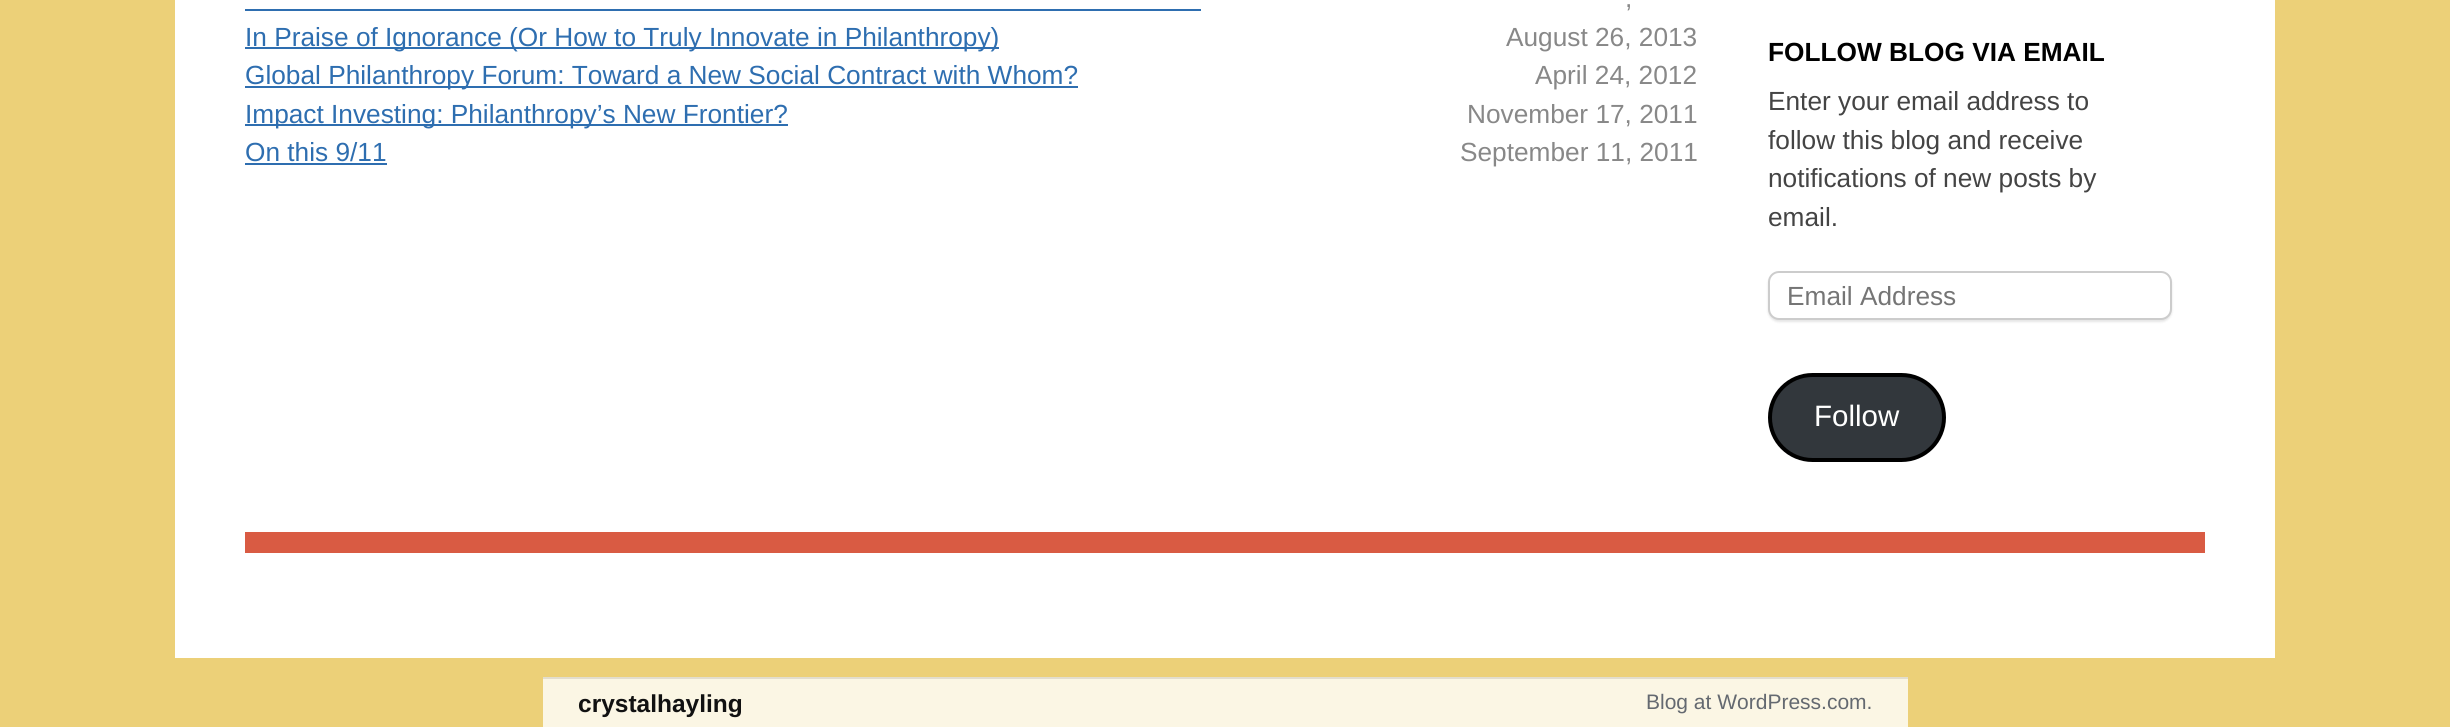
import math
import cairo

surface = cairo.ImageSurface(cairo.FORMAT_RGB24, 2450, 727)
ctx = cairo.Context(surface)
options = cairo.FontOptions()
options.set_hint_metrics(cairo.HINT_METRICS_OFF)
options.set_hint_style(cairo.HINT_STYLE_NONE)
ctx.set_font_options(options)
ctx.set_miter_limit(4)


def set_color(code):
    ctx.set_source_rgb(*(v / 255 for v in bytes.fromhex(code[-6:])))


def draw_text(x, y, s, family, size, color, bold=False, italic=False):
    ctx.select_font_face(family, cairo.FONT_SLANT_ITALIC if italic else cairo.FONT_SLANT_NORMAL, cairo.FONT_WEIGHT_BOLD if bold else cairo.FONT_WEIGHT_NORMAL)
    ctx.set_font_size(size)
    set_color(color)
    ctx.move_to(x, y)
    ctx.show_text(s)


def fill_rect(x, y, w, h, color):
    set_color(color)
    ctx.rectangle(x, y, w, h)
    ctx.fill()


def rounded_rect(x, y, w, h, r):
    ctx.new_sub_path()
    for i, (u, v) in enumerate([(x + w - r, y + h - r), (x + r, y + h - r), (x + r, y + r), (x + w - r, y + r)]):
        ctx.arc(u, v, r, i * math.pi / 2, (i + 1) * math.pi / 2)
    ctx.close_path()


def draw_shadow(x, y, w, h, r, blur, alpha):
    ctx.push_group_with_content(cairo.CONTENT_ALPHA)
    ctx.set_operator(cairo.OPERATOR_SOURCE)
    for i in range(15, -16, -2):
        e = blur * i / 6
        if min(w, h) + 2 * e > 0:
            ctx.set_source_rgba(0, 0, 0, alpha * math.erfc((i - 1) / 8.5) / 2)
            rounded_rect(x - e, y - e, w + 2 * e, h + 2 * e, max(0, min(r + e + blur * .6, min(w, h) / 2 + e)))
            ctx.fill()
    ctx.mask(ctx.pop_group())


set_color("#ecd078")
ctx.paint()
fill_rect(175, 0, 2100, 658, "#ffffff")
fill_rect(245, 9, 956, 2, "#2e6eb0")
draw_text(1625, 7, ",", "Liberation Sans", 26.25, "#888888")
fill_rect(245, 47, 754, 2, "#2e6eb0")
draw_text(245, 46, "In Praise of Ignorance (Or How to Truly Innovate in Philanthropy)", "Liberation Sans", 26.25, "#2e6eb0")
draw_text(1506, 46, "August 26, 2013", "Liberation Sans", 26.25, "#888888")
fill_rect(245, 86, 833, 2, "#2e6eb0")
draw_text(245, 84, "Global Philanthropy Forum: Toward a New Social Contract with Whom?", "Liberation Sans", 26.25, "#2e6eb0")
draw_text(1535, 84, "April 24, 2012", "Liberation Sans", 26.25, "#888888")
fill_rect(245, 124, 543, 2, "#2e6eb0")
draw_text(245, 123, "Impact Investing: Philanthropy’s New Frontier?", "Liberation Sans", 26.25, "#2e6eb0")
draw_text(1467, 123, "November 17, 2011", "Liberation Sans", 26.25, "#888888")
draw_text(245, 161, "On this 9/11", "Liberation Sans", 26.25, "#2e6eb0")
fill_rect(245, 163, 142, 2, "#2e6eb0")
draw_text(1460, 161, "September 11, 2011", "Liberation Sans", 26.25, "#888888")
draw_text(1768, 61, "FOLLOW BLOG VIA EMAIL", "Liberation Sans", 26.25, "#000000", bold=True)
draw_text(1768, 110, "Enter your email address to", "Liberation Sans", 26.25, "#444444")
draw_text(1768, 149, "follow this blog and receive", "Liberation Sans", 26.25, "#444444")
draw_text(1768, 187, "notifications of new posts by", "Liberation Sans", 26.25, "#444444")
draw_text(1768, 226, "email.", "Liberation Sans", 26.25, "#444444")
set_color("#000000")
draw_shadow(1768, 273, 404, 49, 11, 1, 0.1)
set_color("#ffffff")
rounded_rect(1769, 272, 402, 47, 10)
ctx.fill_preserve()
set_color("#cccccc")
ctx.stroke()
draw_text(1787, 305, "Email Address", "Liberation Sans", 26.25, "#757575")
set_color("#32373c")
rounded_rect(1770, 375, 174, 85, 42.5)
ctx.fill_preserve()
set_color("#000000")
ctx.set_line_width(4)
ctx.stroke()
draw_text(1814, 426, "Follow", "Liberation Sans", 29.5, "#ffffff")
fill_rect(245, 532, 1960, 21, "#d95b43")
fill_rect(543, 679, 1365, 48, "#fbf6e4")
fill_rect(543, 677, 1365, 2, "#e2ddcd")
draw_text(578, 712, "crystalhayling", "Liberation Sans", 24.5, "#111111", bold=True)
draw_text(1646, 709, "Blog at WordPress.com.", "Liberation Sans", 21, "#646970")
surface.write_to_png("output.png")
